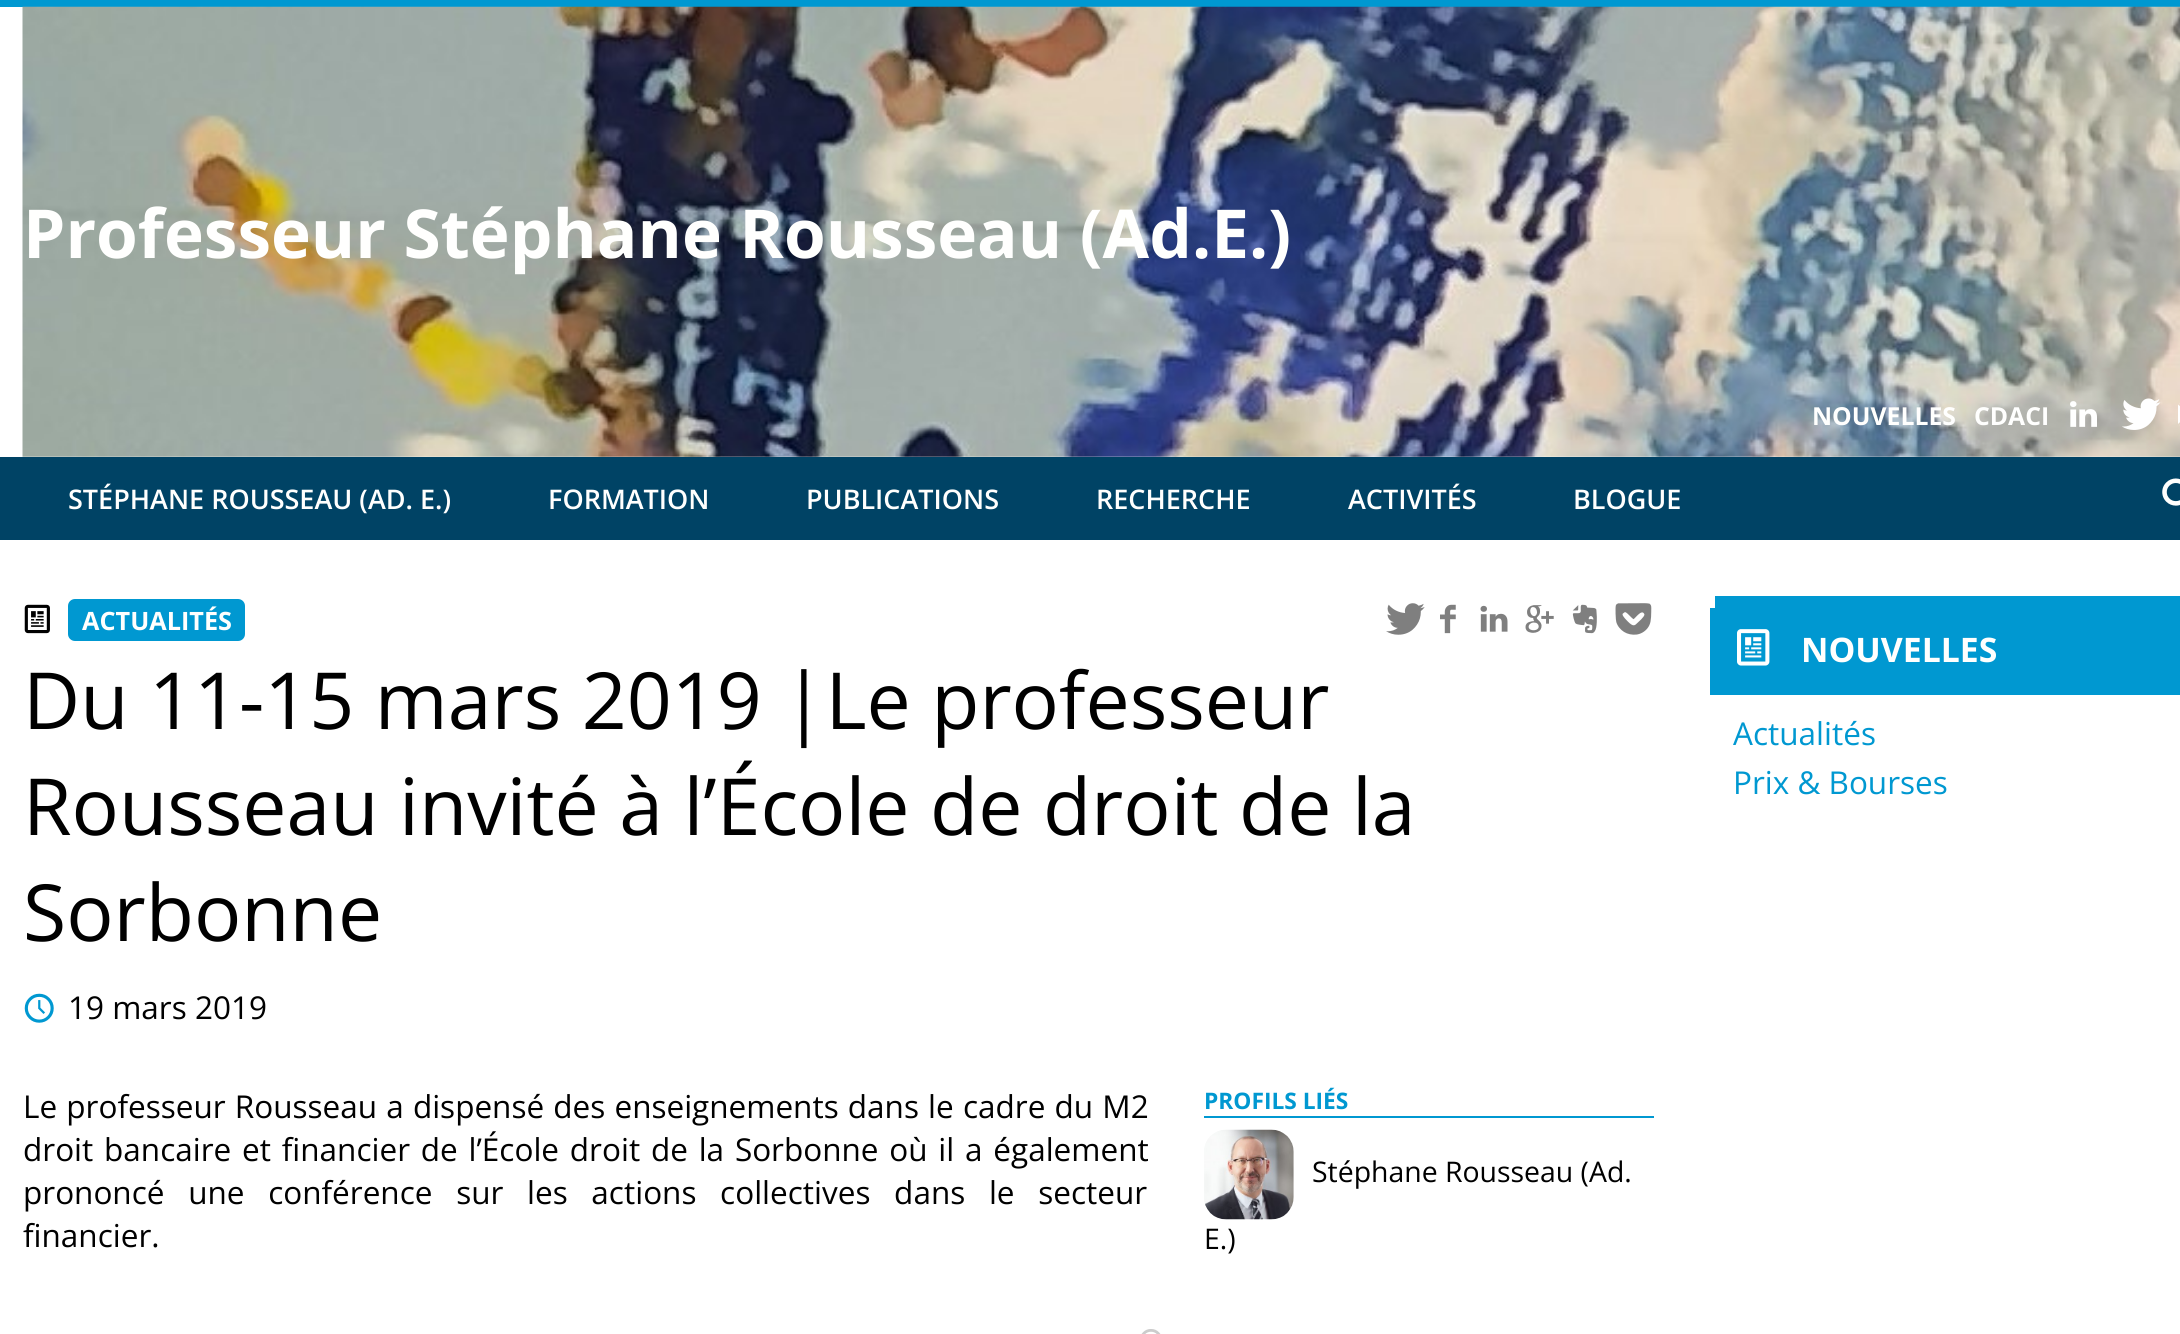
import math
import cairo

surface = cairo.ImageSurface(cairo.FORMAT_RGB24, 2180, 1334)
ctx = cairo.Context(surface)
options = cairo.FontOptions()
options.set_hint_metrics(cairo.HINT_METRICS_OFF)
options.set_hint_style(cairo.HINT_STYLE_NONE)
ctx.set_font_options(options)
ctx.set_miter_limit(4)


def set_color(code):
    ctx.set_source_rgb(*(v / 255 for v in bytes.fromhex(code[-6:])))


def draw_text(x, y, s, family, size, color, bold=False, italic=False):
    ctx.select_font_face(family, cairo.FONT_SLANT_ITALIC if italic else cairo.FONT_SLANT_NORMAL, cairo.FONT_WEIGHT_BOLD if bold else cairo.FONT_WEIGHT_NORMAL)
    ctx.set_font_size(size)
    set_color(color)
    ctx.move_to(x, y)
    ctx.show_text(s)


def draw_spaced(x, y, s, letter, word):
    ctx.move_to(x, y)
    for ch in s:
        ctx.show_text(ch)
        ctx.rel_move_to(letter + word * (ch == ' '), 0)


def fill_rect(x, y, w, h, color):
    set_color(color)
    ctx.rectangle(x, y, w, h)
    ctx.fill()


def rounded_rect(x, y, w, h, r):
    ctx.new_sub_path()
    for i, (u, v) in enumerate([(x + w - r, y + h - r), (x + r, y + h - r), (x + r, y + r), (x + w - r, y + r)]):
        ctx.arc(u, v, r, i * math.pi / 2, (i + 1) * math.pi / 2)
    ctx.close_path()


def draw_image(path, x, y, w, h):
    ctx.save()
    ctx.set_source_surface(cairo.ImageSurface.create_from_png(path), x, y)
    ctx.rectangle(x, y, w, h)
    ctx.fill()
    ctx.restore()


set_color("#ffffff")
ctx.paint()
fill_rect(0, 0, 2180, 7, "#0098d1")
draw_image("assets/img1.png", 22, 6, 2158, 451)
draw_text(23, 258, "Professeur Stéphane Rousseau (Ad.E.)", "Open Sans", 67.5, "#fffffe", bold=True)
draw_text(1812, 425, "NOUVELLES", "Open Sans", 24.75, "#fffffe", bold=True)
draw_text(1974, 425, "CDACI", "Open Sans", 24.75, "#fffffe", bold=True)
draw_image("assets/img2.png", 2070, 401, 27, 26)
draw_image("assets/img3.png", 2122, 398, 39, 32)
draw_image("assets/img4.png", 2178, 403, 2, 23)
fill_rect(0, 457, 2180, 83, "#004365")
draw_text(68, 509, "STÉPHANE ROUSSEAU (AD. E.)", "Open Sans SemiBold", 27, "#fffffe")
draw_text(548, 509, "FORMATION", "Open Sans SemiBold", 27, "#fffffe")
draw_text(806, 509, "PUBLICATIONS", "Open Sans SemiBold", 27, "#fffffe")
draw_text(1096, 509, "RECHERCHE", "Open Sans SemiBold", 27, "#fffffe")
draw_text(1348, 509, "ACTIVITÉS", "Open Sans SemiBold", 27, "#fffffe")
draw_text(1573, 509, "BLOGUE", "Open Sans SemiBold", 27, "#fffffe")
draw_image("assets/img5.png", 2162, 478, 18, 28)
draw_image("assets/img6.png", 24, 604, 26, 30)
set_color("#0098d1")
rounded_rect(69, 600, 175, 40, 6)
ctx.fill_preserve()
ctx.stroke()
draw_text(82, 630, "ACTUALITÉS", "Open Sans", 25.25, "#fffffe", bold=True)
draw_image("assets/img7.png", 1386, 603, 39, 32)
draw_image("assets/img8.png", 1440, 604, 16, 30)
draw_image("assets/img9.png", 1480, 605, 28, 27)
draw_image("assets/img10.png", 1525, 605, 29, 28)
draw_image("assets/img11.png", 1572, 604, 25, 30)
draw_image("assets/img12.png", 1615, 603, 37, 32)
draw_text(23, 729, "Du 11-15 mars 2019 |Le professeur", "Open Sans", 78.75, "#000000")
draw_text(23, 835, "Rousseau invité à l’École de droit de la", "Open Sans", 78.75, "#000000")
draw_text(23, 941, "Sorbonne", "Open Sans", 78.75, "#000000")
draw_image("assets/img13.png", 24, 993, 30, 30)
draw_text(68, 1019, "19 mars 2019", "Open Sans", 31.5, "#000000")
draw_spaced(23, 1118, "Le professeur Rousseau a dispensé des enseignements dans le cadre du M2", 0, 1)
draw_spaced(23, 1161, "droit bancaire et financier de l’École droit de la Sorbonne où il a également", 0, 2.6)
draw_spaced(23, 1204, "prononcé une conférence sur les actions collectives dans le secteur", 0, 15.5)
draw_text(23, 1247, "financier.", "Open Sans", 31.5, "#000000")
fill_rect(1204, 1116, 450, 2, "#0098d1")
draw_text(1204, 1109, "PROFILS LIÉS", "Open Sans", 22.75, "#0098d1", bold=True)
draw_image("assets/img14.png", 1204, 1129, 90, 91)
draw_text(1312, 1182, "Stéphane Rousseau (Ad.", "Open Sans", 28.4, "#000000")
draw_text(1204, 1249, "E.)", "Open Sans", 28.4, "#000000")
draw_image("assets/img15.png", 1141, 1329, 20, 5)
fill_rect(1715, 596, 465, 12, "#0098d1")
fill_rect(1710, 608, 470, 87, "#0098d1")
draw_image("assets/img16.png", 1737, 629, 33, 37)
draw_text(1801, 662, "NOUVELLES", "Open Sans", 33.75, "#fffffe", bold=True)
draw_text(1733, 745, "Actualités", "Open Sans", 31.5, "#0098d1")
draw_text(1733, 794, "Prix & Bourses", "Open Sans", 31.5, "#0098d1")
surface.write_to_png("output.png")
